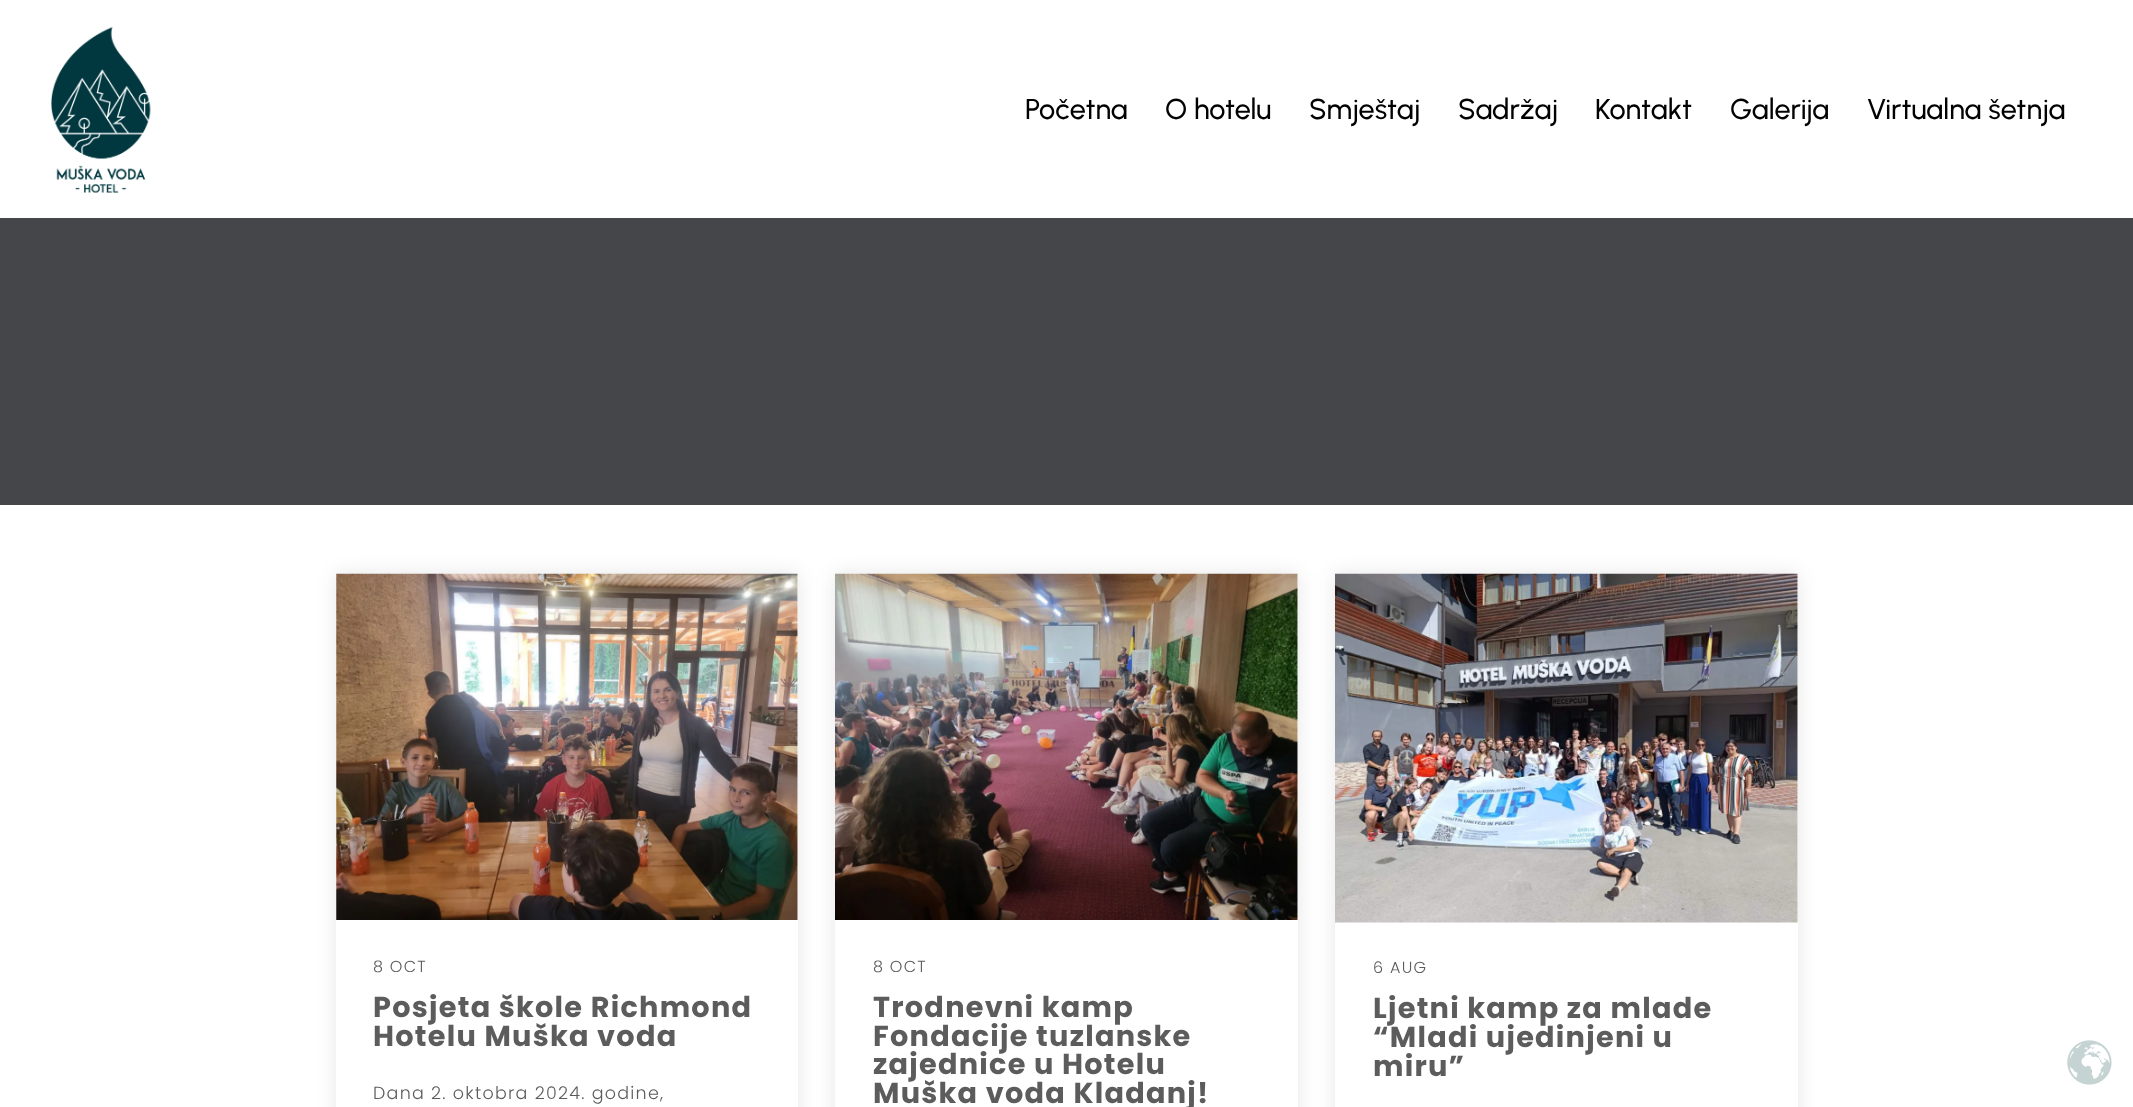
async function draw(canvas) {
  canvas.width = 2133;
  canvas.height = 1107;
  const ctx = canvas.getContext('2d');
  ctx.miterLimit = 4;
  ctx.fontKerning = 'normal';
  function label(s, x, y, font, color) {
    ctx.font = font;
    ctx.fillStyle = color;
    ctx.fillText(s, x, y);
  }
  function rect(x, y, w, h, color) {
    ctx.fillStyle = color;
    ctx.fillRect(x, y, w, h);
  }
  async function image(src, x, y, w, h) {
    const img = new Image();
    img.src = src;
    await img.decode();
    ctx.drawImage(img, x, y, w, h);
  }

  rect(0, 0, 2133, 1107, '#fff');
  await image('assets/img1.png', 51, 26, 100, 167);
  label('Početna', 1025, 119, '500 28.75px Urbanist', '#000');
  label('O hotelu', 1165, 119, '500 28.75px Urbanist', '#000');
  label('Smještaj', 1309, 119, '500 28.75px Urbanist', '#000');
  label('Sadržaj', 1458, 119, '500 28.75px Urbanist', '#000');
  label('Kontakt', 1595, 119, '500 28.75px Urbanist', '#000');
  label('Galerija', 1730, 119, '500 28.75px Urbanist', '#000');
  label('Virtualna šetnja', 1867, 119, '500 28.75px Urbanist', '#000');
  rect(0, 218, 2133, 287, '#444649');
  ctx.fillStyle = '#0000001a';
  ctx.filter = 'blur(9.5px)';
  ctx.beginPath();
  ctx.rect(336, 574, 462, 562);
  ctx.fill();
  ctx.filter = 'none';
  rect(336, 574, 462, 533, '#fff');
  await image('assets/img2.png', 336, 573, 462, 347);
  ctx.letterSpacing = '1.25px';
  label('8 OCT', 373, 972, '300 16px Poppins', '#5c5c5c');
  label('Posjeta škole Richmond', 373, 1017, 'bold 28.75px Poppins', '#5c5c5c');
  label('Hotelu Muška voda', 373, 1046, 'bold 28.75px Poppins', '#5c5c5c');
  label('Dana 2. oktobra 2024. godine,', 373, 1099, '300 17.5px Poppins', '#5c5c5c');
  ctx.fillStyle = '#0000001a';
  ctx.filter = 'blur(9.5px)';
  ctx.beginPath();
  ctx.rect(835, 574, 463, 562);
  ctx.fill();
  ctx.filter = 'none';
  rect(835, 574, 463, 533, '#fff');
  await image('assets/img3.png', 835, 573, 463, 347);
  label('8 OCT', 873, 972, '300 16px Poppins', '#5c5c5c');
  label('Trodnevni kamp', 873, 1017, 'bold 28.75px Poppins', '#5c5c5c');
  label('Fondacije tuzlanske', 873, 1046, 'bold 28.75px Poppins', '#5c5c5c');
  label('zajednice u Hotelu', 873, 1074, 'bold 28.75px Poppins', '#5c5c5c');
  label('Muška voda Kladanj!', 873, 1103, 'bold 28.75px Poppins', '#5c5c5c');
  ctx.fillStyle = '#0000001a';
  ctx.filter = 'blur(9.5px)';
  ctx.beginPath();
  ctx.rect(1335, 574, 463, 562);
  ctx.fill();
  ctx.filter = 'none';
  rect(1335, 574, 463, 533, '#fff');
  await image('assets/img4.png', 1335, 573, 463, 350);
  label('6 AUG', 1373, 973, '300 16px Poppins', '#5c5c5c');
  label('Ljetni kamp za mlade', 1373, 1018, 'bold 28.75px Poppins', '#5c5c5c');
  label('“Mladi ujedinjeni u', 1373, 1047, 'bold 28.75px Poppins', '#5c5c5c');
  label('miru”', 1373, 1076, 'bold 28.75px Poppins', '#5c5c5c');
  await image('assets/img5.png', 2067, 1040, 45, 45);
}

draw(document.querySelector('canvas'));
